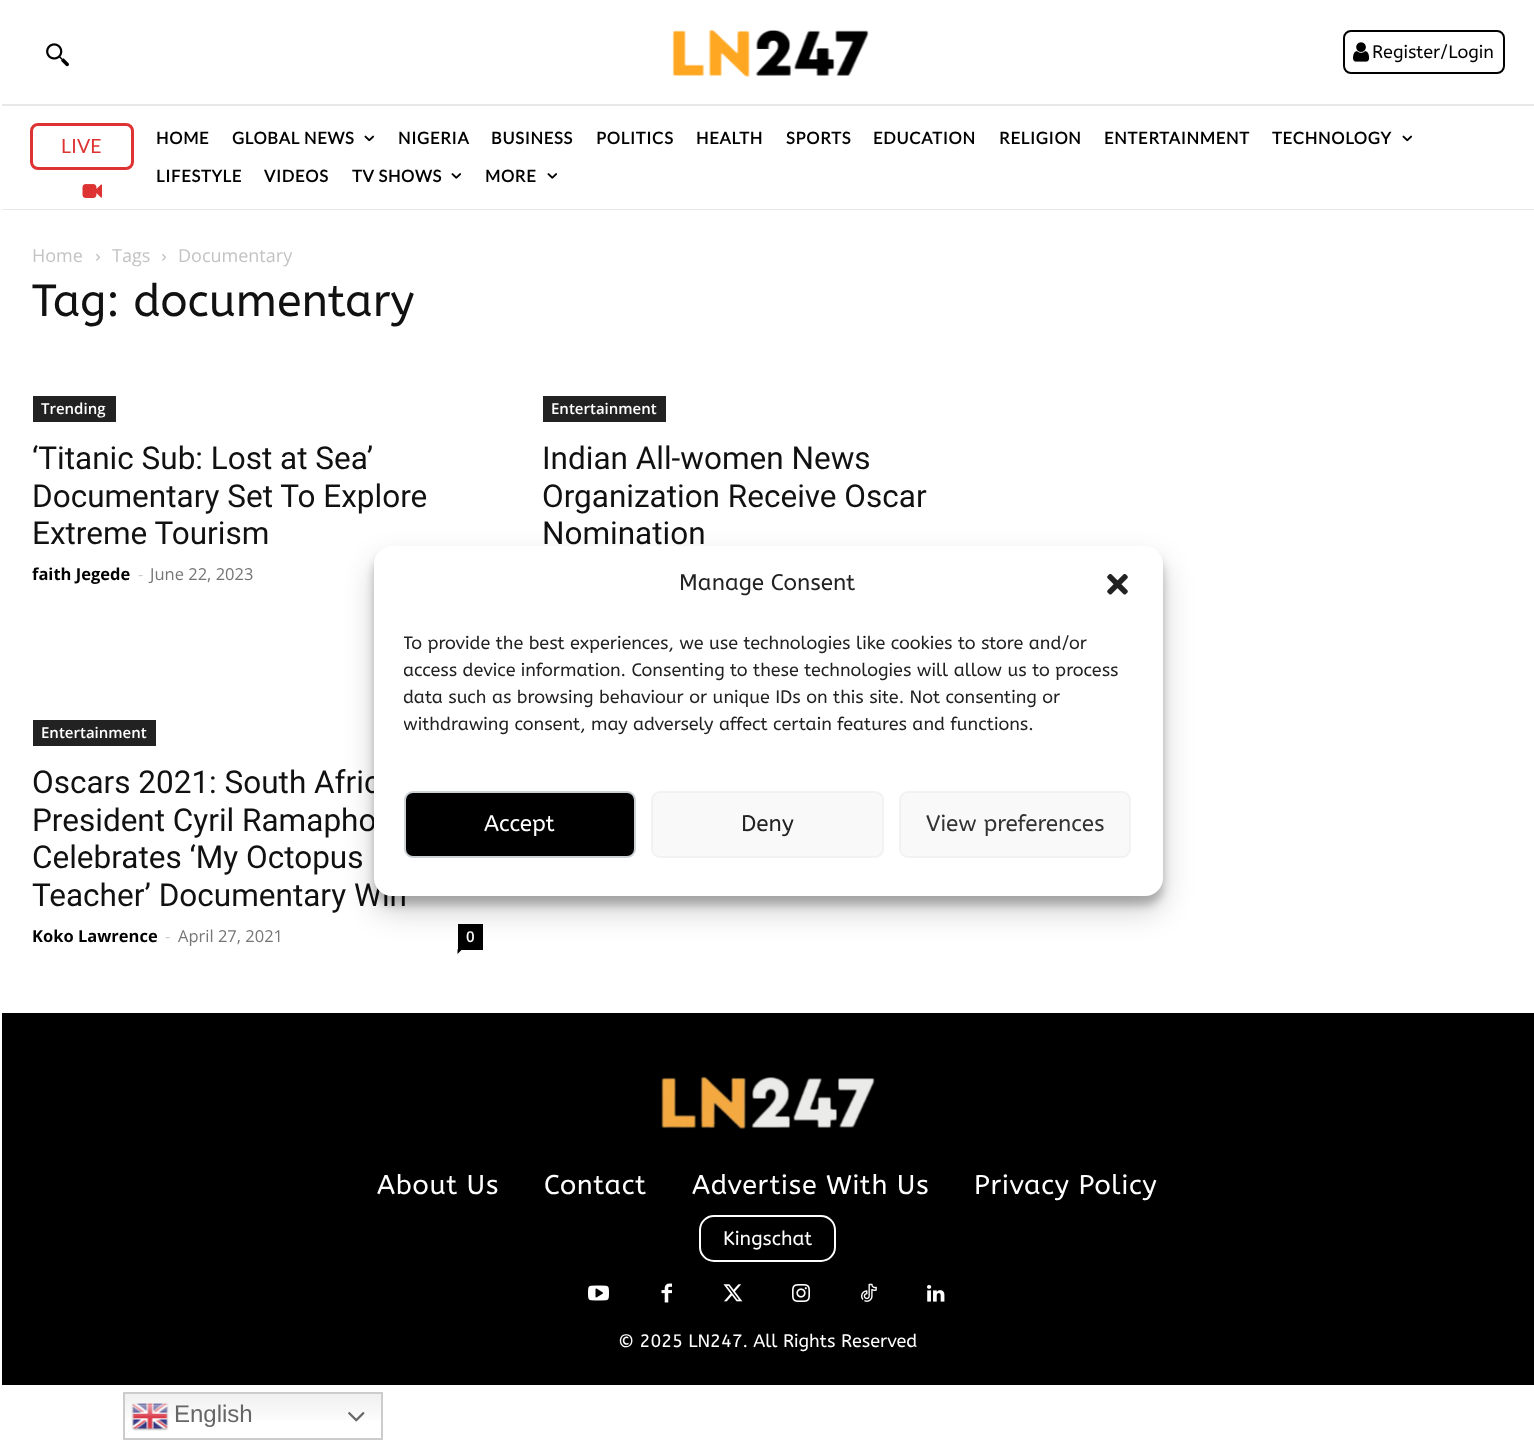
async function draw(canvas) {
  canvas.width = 1534;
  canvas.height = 1440;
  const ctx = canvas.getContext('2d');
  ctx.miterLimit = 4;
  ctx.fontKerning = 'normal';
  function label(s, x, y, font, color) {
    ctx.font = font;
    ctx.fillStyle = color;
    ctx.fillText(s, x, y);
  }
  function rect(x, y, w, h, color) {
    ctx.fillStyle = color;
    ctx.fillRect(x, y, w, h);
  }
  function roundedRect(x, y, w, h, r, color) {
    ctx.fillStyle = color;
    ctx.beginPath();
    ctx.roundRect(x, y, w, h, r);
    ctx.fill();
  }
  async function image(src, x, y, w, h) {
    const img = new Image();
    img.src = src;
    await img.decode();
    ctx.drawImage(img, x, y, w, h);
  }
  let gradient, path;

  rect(0, 0, 1534, 1440, '#fff');
  await image('assets/img1.png', 46, 43, 23, 24);
  await image('assets/img2.png', 672, 29, 197, 48);
  ctx.beginPath();
  ctx.roundRect(1344, 31, 160, 42, 7);
  ctx.strokeStyle = '#000';
  ctx.lineWidth = 2;
  ctx.stroke();
  await image('assets/img3.png', 1353, 42, 17, 20);
  label('Register/Login', 1372, 58, '18px ABeeZee', '#000');
  rect(2, 104, 1532, 2, '#e8e8e8');
  rect(2, 209, 1532, 1, '#e8e8e8');
  ctx.beginPath();
  ctx.roundRect(31.5, 124.5, 101, 44, 6.5);
  ctx.strokeStyle = '#d33';
  ctx.lineWidth = 3;
  ctx.stroke();
  label('LIVE', 61, 153, '19.5px Lato', '#d33');
  await image('assets/img4.png', 82, 184, 20, 14);
  ctx.letterSpacing = '0.75px';
  label('HOME', 156, 144, 'bold 16.5px Lato', '#000');
  label('GLOBAL NEWS', 232, 144, 'bold 16.5px Lato', '#000');
  await image('assets/img5.png', 364, 135, 10, 7);
  label('NIGERIA', 398, 144, 'bold 16.5px Lato', '#000');
  label('BUSINESS', 491, 144, 'bold 16.5px Lato', '#000');
  label('POLITICS', 596, 144, 'bold 16.5px Lato', '#000');
  label('HEALTH', 696, 144, 'bold 16.5px Lato', '#000');
  label('SPORTS', 786, 144, 'bold 16.5px Lato', '#000');
  label('EDUCATION', 873, 144, 'bold 16.5px Lato', '#000');
  label('RELIGION', 999, 144, 'bold 16.5px Lato', '#000');
  label('ENTERTAINMENT', 1104, 144, 'bold 16.5px Lato', '#000');
  label('TECHNOLOGY', 1272, 144, 'bold 16.5px Lato', '#000');
  await image('assets/img5.png', 1402, 135, 10, 7);
  label('LIFESTYLE', 156, 182, 'bold 16.5px Lato', '#000');
  label('VIDEOS', 264, 182, 'bold 16.5px Lato', '#000');
  label('TV SHOWS', 352, 182, 'bold 16.5px Lato', '#000');
  await image('assets/img6.png', 451, 173, 10, 6);
  label('MORE', 485, 182, 'bold 16.5px Lato', '#000');
  await image('assets/img6.png', 547, 173, 10, 6);
  ctx.letterSpacing = '0px';
  label('Home', 32, 262, '18px Open Sans', '#c3c3c3');
  await image('assets/img7.png', 96, 254, 4, 7);
  label('Tags', 112, 262, '18px Open Sans', '#c3c3c3');
  await image('assets/img7.png', 162, 254, 4, 7);
  label('Documentary', 178, 262, '18px Open Sans', '#c3c3c3');
  label('Tag: documentary', 32, 316, '45px ABeeZee', '#111');
  rect(33, 396, 83, 26, '#222');
  label('Trending', 41, 414, '600 15px Open Sans', '#fff');
  label('‘Titanic Sub: Lost at Sea’', 32, 469, '31.5px Roboto', '#111');
  label('Documentary Set To Explore', 32, 507, '31.5px Roboto', '#111');
  label('Extreme Tourism', 32, 544, '31.5px Roboto', '#111');
  label('faith Jegede', 32, 580, 'bold 16.5px Open Sans', '#000');
  label('-', 138, 580, '16.5px Open Sans', '#ccc');
  label('June 22, 2023', 150, 580, '16.5px Open Sans', '#767676');
  rect(543, 396, 123, 26, '#222');
  label('Entertainment', 551, 414, '600 15px Open Sans', '#fff');
  label('Indian All-women News', 542, 469, '31.5px Roboto', '#111');
  label('Organization Receive Oscar', 542, 507, '31.5px Roboto', '#111');
  label('Nomination', 542, 544, '31.5px Roboto', '#111');
  rect(33, 720, 123, 26, '#222');
  label('Entertainment', 41, 738, '600 15px Open Sans', '#fff');
  label('Oscars 2021: South Afric', 32, 793, '31.5px Roboto', '#111');
  label('President Cyril Ramapho', 32, 831, '31.5px Roboto', '#111');
  label('Celebrates ‘My Octopus', 32, 868, '31.5px Roboto', '#111');
  label('Teacher’ Documentary Win', 32, 906, '31.5px Roboto', '#111');
  label('Koko Lawrence', 32, 942, 'bold 16.5px Open Sans', '#000');
  label('-', 165, 942, '16.5px Open Sans', '#ccc');
  label('April 27, 2021', 178, 942, '16.5px Open Sans', '#767676');
  rect(458, 924, 25, 26, '#000');
  label('0', 466, 942, '600 15px Open Sans', '#fff');
  ctx.fillStyle = '#000';
  path = new Path2D('M457.5 949.5H462L457.5 954Z');
  ctx.fill(path);
  rect(2, 1013, 1532, 372, '#000');
  await image('assets/img8.png', 661, 1076, 214, 53);
  ctx.letterSpacing = '0.75px';
  label('About Us', 377, 1194, '27px ABeeZee', '#fff');
  label('Contact', 544, 1194, '27px ABeeZee', '#fff');
  label('Advertise With Us', 692, 1194, '27px ABeeZee', '#fff');
  label('Privacy Policy', 974, 1194, '27px ABeeZee', '#fff');
  ctx.beginPath();
  ctx.roundRect(700, 1216, 135, 45, 14);
  ctx.strokeStyle = '#fff';
  ctx.lineWidth = 2;
  ctx.stroke();
  ctx.letterSpacing = '0px';
  label('Kingschat', 723, 1245, '19.5px ABeeZee', '#fff');
  await image('assets/img9.png', 588, 1285, 21, 16);
  await image('assets/img10.png', 661, 1283, 11, 20);
  await image('assets/img11.png', 723, 1284, 20, 18);
  await image('assets/img12.png', 792, 1284, 18, 18);
  await image('assets/img13.png', 861, 1283, 16, 19);
  await image('assets/img14.png', 927, 1285, 18, 17);
  label('© 2025 LN247. All Rights Reserved', 618, 1347, '18px ABeeZee', '#fff');
  ctx.fillStyle = '#0000003b';
  ctx.filter = 'blur(4.5px)';
  ctx.beginPath();
  ctx.roundRect(374, 555, 789, 350, 18);
  ctx.fill();
  ctx.filter = 'none';
  ctx.fillStyle = '#00000030';
  ctx.filter = 'blur(15px)';
  ctx.beginPath();
  ctx.roundRect(374, 561, 789, 350, 18);
  ctx.fill();
  ctx.filter = 'none';
  roundedRect(374, 546, 789, 350, 18, '#fff');
  label('Manage Consent', 679, 590, '22.5px ABeeZee', '#222');
  await image('assets/img15.png', 1107, 574, 21, 21);
  ctx.save();
  ctx.beginPath();
  ctx.rect(404, 630, 729, 116);
  ctx.clip();
  label('To provide the best experiences, we use technologies like cookies to store and/or', 403, 649, '18px ABeeZee', '#222');
  label('access device information. Consenting to these technologies will allow us to process', 403, 676, '18px ABeeZee', '#222');
  label('data such as browsing behaviour or unique IDs on this site. Not consenting or', 403, 703, '18px ABeeZee', '#222');
  label('withdrawing consent, may adversely affect certain features and functions.', 403, 730, '18px ABeeZee', '#222');
  ctx.restore();
  ctx.fillStyle = '#000';
  ctx.beginPath();
  ctx.roundRect(405, 792, 230, 65, 8);
  ctx.fill();
  ctx.strokeStyle = '#ccd1d4';
  ctx.stroke();
  label('Accept', 484, 831, '22.5px ABeeZee', '#fff');
  ctx.fillStyle = '#f9f9f9';
  ctx.beginPath();
  ctx.roundRect(652, 792, 231, 65, 8);
  ctx.fill();
  ctx.strokeStyle = '#f2f2f2';
  ctx.stroke();
  label('Deny', 741, 831, '22.5px ABeeZee', '#222');
  ctx.fillStyle = '#f9f9f9';
  ctx.beginPath();
  ctx.roundRect(900, 792, 230, 65, 8);
  ctx.fill();
  ctx.stroke();
  label('View preferences', 926, 831, '22.5px ABeeZee', '#333');
  gradient = ctx.createLinearGradient(253, 1392, 253, 1440);
  gradient.addColorStop(0, '#efefef');
  gradient.addColorStop(0.7, '#fff');
  ctx.fillStyle = gradient;
  ctx.fillRect(125, 1394, 256, 26);
  ctx.strokeStyle = '#ccc';
  ctx.strokeRect(124, 1393, 258, 46);
  await image('assets/img16.png', 131, 1403, 38, 28);
  label('English', 174, 1422, '24px Liberation Sans', '#666');
  await image('assets/img17.png', 348, 1412, 17, 10);
}

draw(document.querySelector('canvas'));
